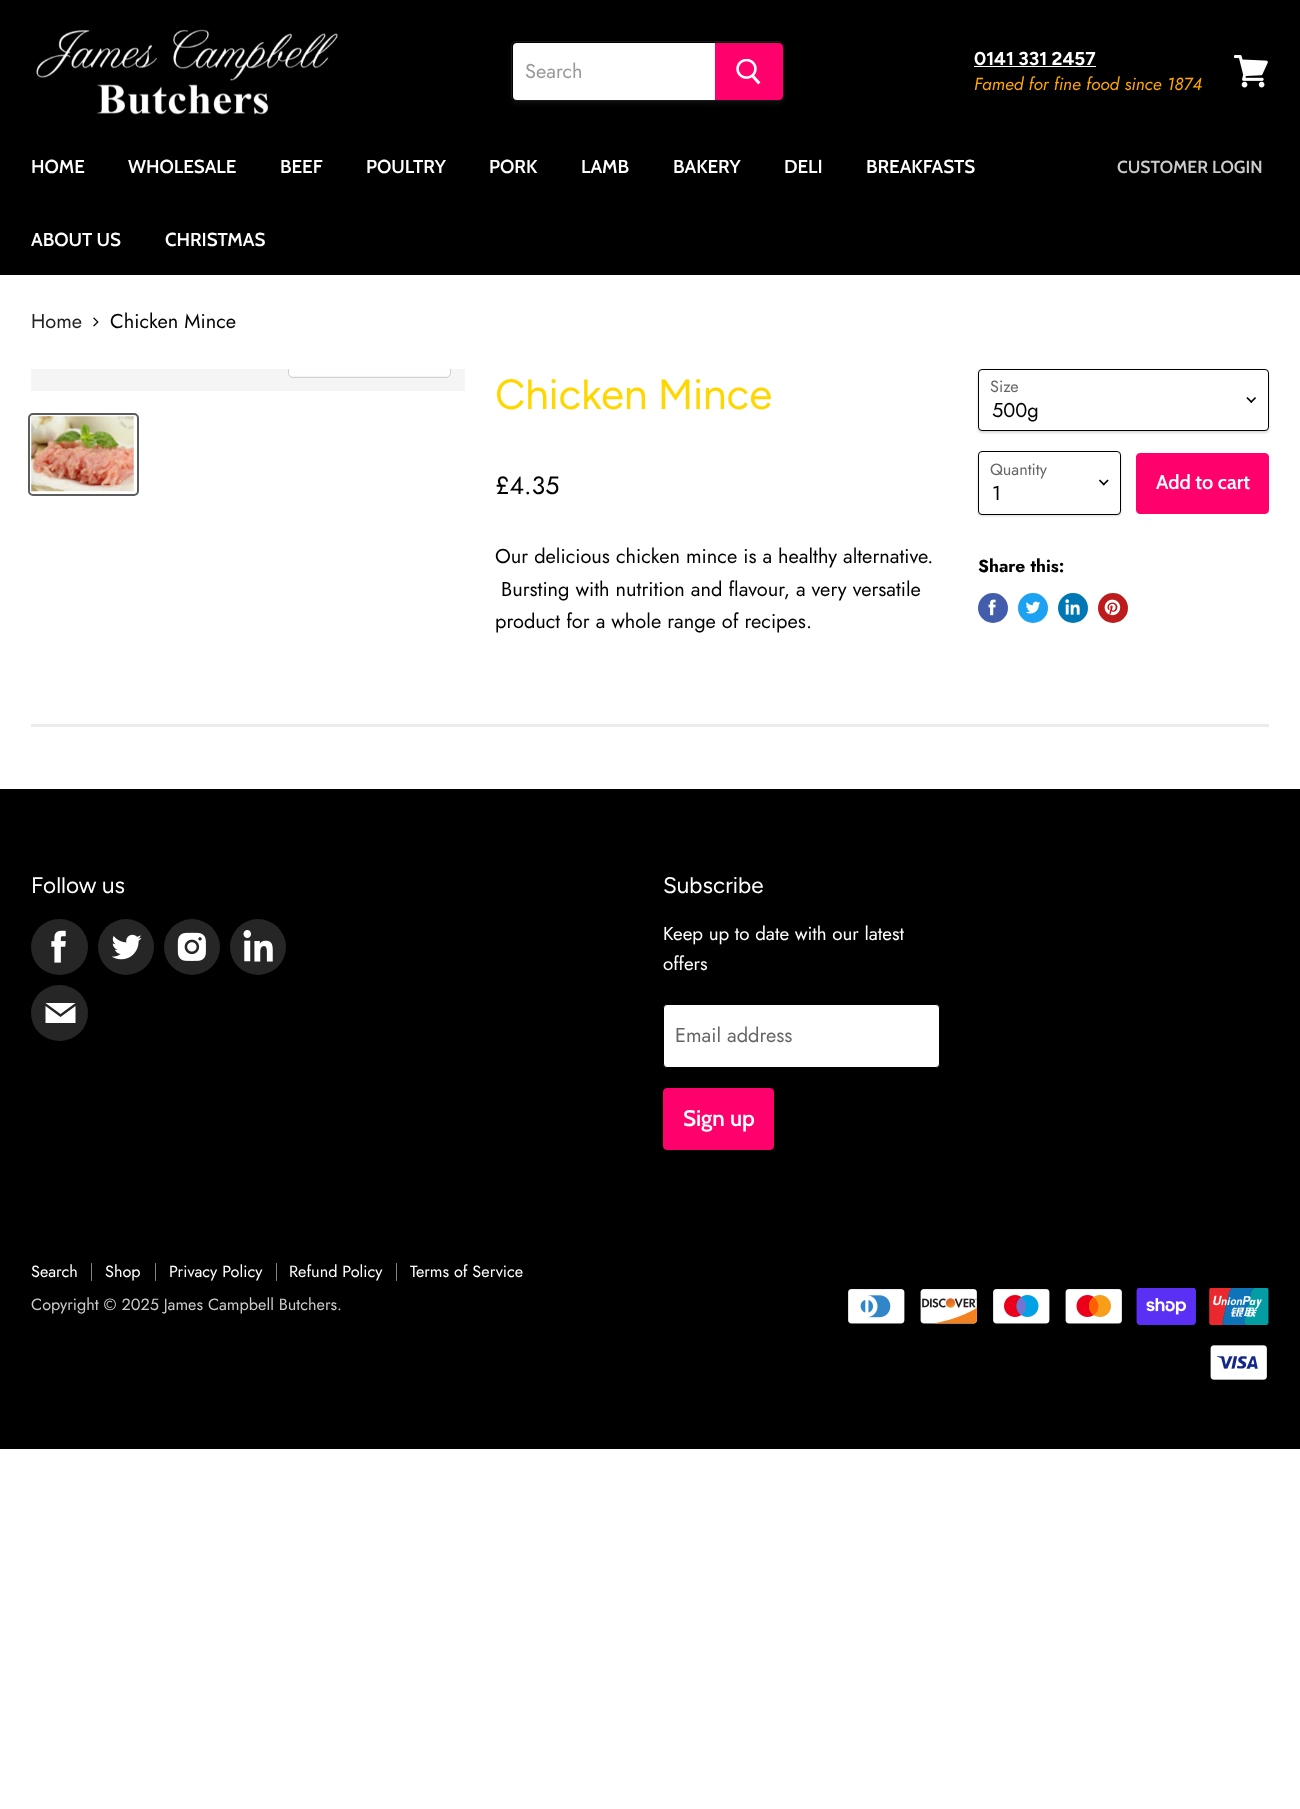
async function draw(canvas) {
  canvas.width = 1300;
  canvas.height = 1809;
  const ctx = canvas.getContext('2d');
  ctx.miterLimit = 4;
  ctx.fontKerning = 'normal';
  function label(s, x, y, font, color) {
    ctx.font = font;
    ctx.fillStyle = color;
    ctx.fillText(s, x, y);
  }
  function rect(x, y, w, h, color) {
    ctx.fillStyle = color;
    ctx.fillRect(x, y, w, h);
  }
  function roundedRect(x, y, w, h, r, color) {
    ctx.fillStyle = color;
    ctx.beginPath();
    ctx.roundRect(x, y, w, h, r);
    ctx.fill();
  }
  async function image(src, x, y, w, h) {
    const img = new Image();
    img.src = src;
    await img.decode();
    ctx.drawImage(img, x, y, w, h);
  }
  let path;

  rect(0, 0, 1300, 1809, '#fff');
  rect(0, 0, 1300, 275, '#000');
  await image('assets/img1.png', 36, 29, 302, 86);
  ctx.save();
  path = new Path2D('M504 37H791V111H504ZM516 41H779C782 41 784 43 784 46V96C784 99 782 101 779 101H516C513 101 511 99 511 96V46C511 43 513 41 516 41Z');
  ctx.clip(path, 'evenodd');
  ctx.fillStyle = '#8080801c';
  ctx.filter = 'blur(2px)';
  ctx.beginPath();
  ctx.roundRect(511, 44, 273, 60, 5);
  ctx.fill();
  ctx.filter = 'none';
  ctx.restore();
  ctx.beginPath();
  ctx.roundRect(511.5, 41.5, 272, 59, 4.5);
  ctx.strokeStyle = '#80808033';
  ctx.stroke();
  ctx.fillStyle = '#fff';
  ctx.beginPath();
  ctx.roundRect(513, 43, 202, 57, [4, 0, 0, 4]);
  ctx.fill();
  label('Search', 525, 78, '20px Jost', '#999');
  ctx.fillStyle = '#ff006d';
  ctx.beginPath();
  ctx.roundRect(715.5, 43.5, 67, 56, [0, 3.5, 3.5, 0]);
  ctx.fill();
  ctx.strokeStyle = '#ff006d';
  ctx.stroke();
  await image('assets/img2.png', 736, 59, 25, 26);
  label('0141 331 2457', 974, 65, 'bold 18.75px Figtree', '#fff');
  rect(974, 66, 122, 1, '#fff');
  label('Famed for fine food since 1874', 974, 90, 'italic 17.5px Jost', '#ffa800');
  await image('assets/img3.png', 1234, 55, 34, 33);
  label('HOME', 31, 173, '600 18.75px Cabin', '#fff');
  label('WHOLESALE', 128, 173, '600 18.75px Cabin', '#fff');
  label('BEEF', 280, 173, '600 18.75px Cabin', '#fff');
  label('POULTRY', 366, 173, '600 18.75px Cabin', '#fff');
  label('PORK', 489, 173, '600 18.75px Cabin', '#fff');
  label('LAMB', 581, 173, '600 18.75px Cabin', '#fff');
  label('BAKERY', 673, 173, '600 18.75px Cabin', '#fff');
  label('DELI', 784, 173, '600 18.75px Cabin', '#fff');
  label('BREAKFASTS', 866, 173, '600 18.75px Cabin', '#fff');
  label('ABOUT US', 31, 246, '600 18.75px Cabin', '#fff');
  label('CHRISTMAS', 165, 246, '600 18.75px Cabin', '#fff');
  label('CUSTOMER LOGIN', 1117, 173, '600 17.5px Cabin', '#ccc');
  label('Home', 31, 328, '20px Jost', '#222');
  await image('assets/img4.png', 93, 317, 6, 10);
  label('Chicken Mince', 110, 328, '20px Jost', '#000');
  rect(31, 369, 434, 22, '#f5f5f5');
  ctx.save();
  ctx.beginPath();
  ctx.rect(31, 369, 434, 22);
  ctx.clip();
  ctx.beginPath();
  ctx.roundRect(288.5, 340.5, 162, 37, 4.5);
  ctx.strokeStyle = '#d0d0d0';
  ctx.stroke();
  ctx.restore();
  ctx.fillStyle = '#fefefe';
  ctx.beginPath();
  ctx.roundRect(289, 369, 161, 7, [0, 0, 4, 4]);
  ctx.fill();
  ctx.beginPath();
  ctx.roundRect(29, 414, 109, 81, 4);
  ctx.strokeStyle = '#5c5c5c';
  ctx.lineWidth = 2;
  ctx.stroke();
  await image('assets/img5.png', 31, 416, 103, 76);
  label('Chicken Mince', 495, 409, '42px Figtree', '#ffd700');
  label('£4.35', 495, 494, '25px Jost', '#000');
  label('Our delicious chicken mince is a healthy alternative.', 495, 563, '20px Jost', '#000');
  label('Bursting with nutrition and flavour, a very versatile', 501, 596, '20px Jost', '#000');
  label('product for a whole range of recipes.', 495, 628, '20px Jost', '#000');
  ctx.fillStyle = '#00000026';
  ctx.filter = 'blur(1px)';
  ctx.beginPath();
  ctx.roundRect(978, 370, 291, 63, 4);
  ctx.fill();
  ctx.filter = 'none';
  ctx.fillStyle = '#fff';
  ctx.beginPath();
  ctx.roundRect(978.5, 369.5, 290, 61, 3.5);
  ctx.fill();
  ctx.strokeStyle = '#000';
  ctx.lineWidth = 1;
  ctx.stroke();
  label('Size', 990, 392, '16.25px Jost', '#666');
  await image('assets/img6.png', 1246, 397, 10, 6);
  label('500g', 992, 417, '20px Jost', '#000');
  ctx.fillStyle = '#00000026';
  ctx.filter = 'blur(1px)';
  ctx.beginPath();
  ctx.roundRect(978, 453, 143, 63, 4);
  ctx.fill();
  ctx.filter = 'none';
  ctx.fillStyle = '#fff';
  ctx.beginPath();
  ctx.roundRect(978.5, 451.5, 142, 63, 3.5);
  ctx.fill();
  ctx.stroke();
  label('Quantity', 990, 475, '16.25px Jost', '#666');
  await image('assets/img7.png', 1099, 479, 10, 7);
  label('1', 992, 500, '20px Jost', '#000');
  ctx.fillStyle = '#ff006d';
  ctx.beginPath();
  ctx.roundRect(1136.5, 453.5, 132, 60, 3.5);
  ctx.fill();
  ctx.strokeStyle = '#ff006d';
  ctx.stroke();
  label('Add to cart', 1156, 489, '600 20px Cabin', '#fff');
  label('Share this:', 978, 572, 'bold 17.5px Jost', '#000');
  ctx.fillStyle = '#425dab';
  ctx.beginPath();
  ctx.arc(993, 608, 15, 0, 2 * Math.PI);
  ctx.fill();
  await image('assets/img8.png', 988, 599, 8, 17);
  ctx.fillStyle = '#1da1f2';
  ctx.beginPath();
  ctx.arc(1033, 608, 15, 0, 2 * Math.PI);
  ctx.fill();
  await image('assets/img9.png', 1025, 601, 16, 13);
  ctx.fillStyle = '#0077b5';
  ctx.beginPath();
  ctx.arc(1073, 608, 15, 0, 2 * Math.PI);
  ctx.fill();
  await image('assets/img10.png', 1065, 599, 15, 16);
  ctx.fillStyle = '#bd1c1c';
  ctx.beginPath();
  ctx.arc(1113, 608, 15, 0, 2 * Math.PI);
  ctx.fill();
  await image('assets/img11.png', 1104, 599, 17, 17);
  rect(31, 724, 1238, 3, '#80808029');
  rect(0, 789, 1300, 660, '#000');
  label('Follow us', 31, 893, '22.5px Figtree', '#fff');
  roundedRect(31, 919, 57, 56, 28, '#262626');
  await image('assets/img12.png', 51, 930, 15, 33);
  ctx.beginPath();
  ctx.arc(126, 947, 28, 0, 2 * Math.PI);
  ctx.fill();
  await image('assets/img13.png', 111, 934, 31, 26);
  ctx.beginPath();
  ctx.arc(192, 947, 28, 0, 2 * Math.PI);
  ctx.fill();
  await image('assets/img14.png', 177, 932, 29, 29);
  ctx.beginPath();
  ctx.arc(258, 947, 28, 0, 2 * Math.PI);
  ctx.fill();
  await image('assets/img15.png', 243, 930, 30, 32);
  roundedRect(31, 985, 57, 56, 28, '#262626');
  ctx.fillStyle = '#fff';
  path = new Path2D('M75.5 1003H45.5L60.5 1014ZM60.5 1017L45.5 1006V1023H75.5V1006Z');
  ctx.fill(path, 'evenodd');
  label('Subscribe', 663, 893, '22.5px Figtree', '#fff');
  label('Keep up to date with our latest', 663, 940, '18.75px Jost', '#fff');
  label('offers', 663, 970, '18.75px Jost', '#fff');
  ctx.beginPath();
  ctx.roundRect(663.5, 1004.5, 276, 63, 3.5);
  ctx.fill();
  ctx.strokeStyle = '#000';
  ctx.stroke();
  label('Email address', 675, 1042, '20px Jost', '#666');
  ctx.fillStyle = '#ff006d';
  ctx.beginPath();
  ctx.roundRect(663.5, 1088.5, 110, 61, 3.5);
  ctx.fill();
  ctx.strokeStyle = '#ff006d';
  ctx.stroke();
  label('Sign up', 683, 1126, '600 22.5px Cabin', '#fff');
  rect(91, 1263, 1, 18, '#808080');
  label('Search', 31, 1277, '16.25px Jost', '#fff');
  rect(155, 1263, 1, 18, '#808080');
  label('Shop', 105, 1277, '16.25px Jost', '#fff');
  rect(276, 1263, 1, 18, '#808080');
  label('Privacy Policy', 169, 1277, '16.25px Jost', '#fff');
  rect(396, 1263, 1, 18, '#808080');
  label('Refund Policy', 289, 1277, '16.25px Jost', '#fff');
  label('Terms of Service', 410, 1277, '16.25px Jost', '#fff');
  label('Copyright © 2025 James Campbell Butchers.', 31, 1310, '16.25px Jost', '#ccc');
  await image('assets/img16.png', 848, 1289, 57, 35);
  await image('assets/img17.png', 920, 1289, 57, 35);
  await image('assets/img18.png', 993, 1289, 57, 35);
  await image('assets/img19.png', 1065, 1289, 57, 35);
  await image('assets/img20.png', 1136, 1288, 60, 37);
  await image('assets/img21.png', 1209, 1288, 60, 37);
  await image('assets/img22.png', 1210, 1345, 57, 35);
}

draw(document.querySelector('canvas'));
